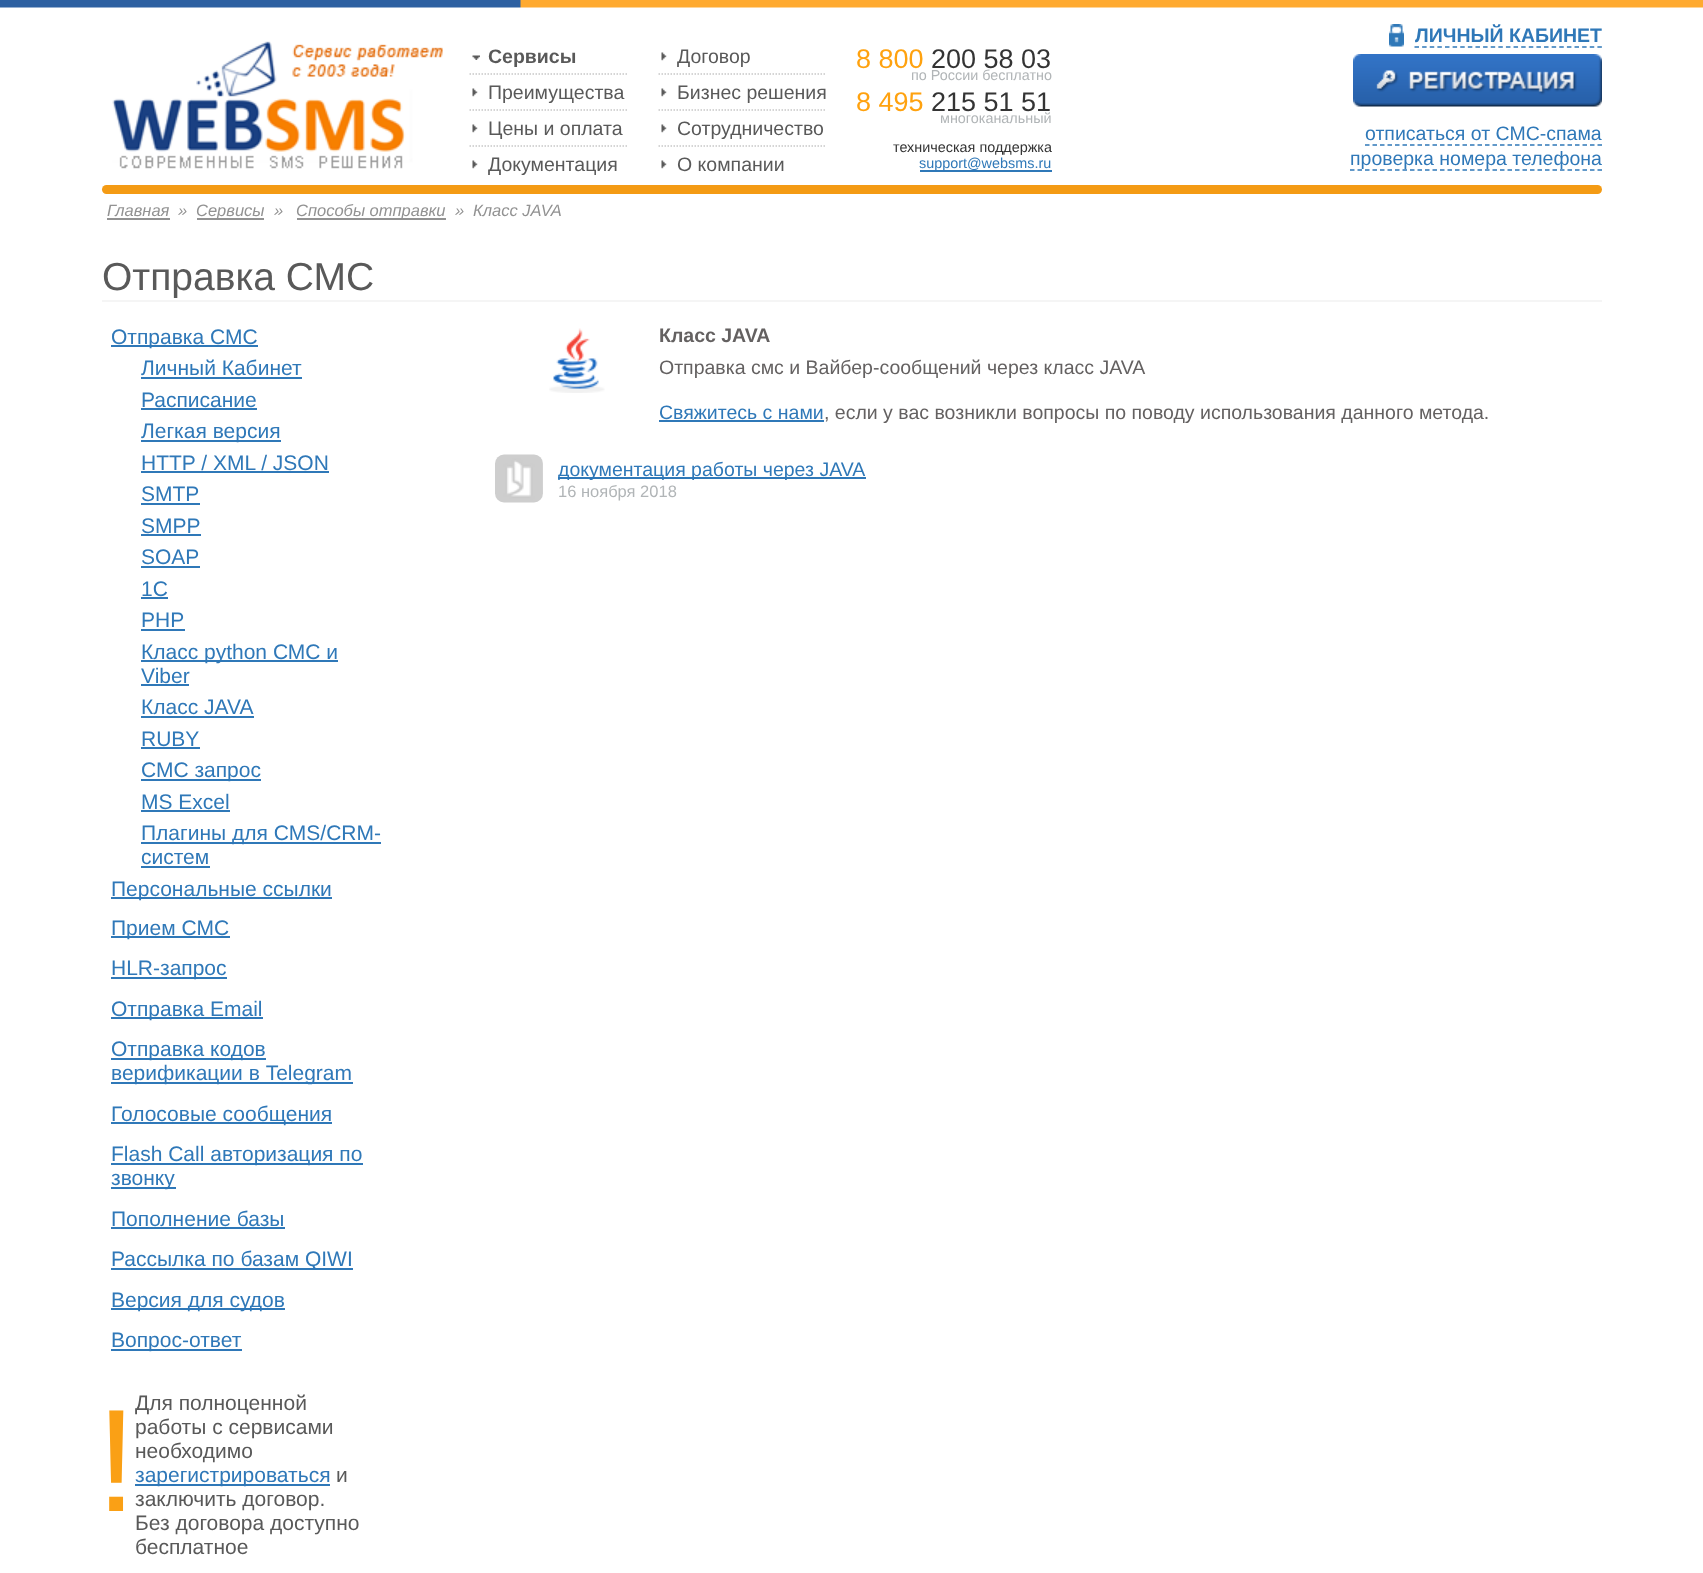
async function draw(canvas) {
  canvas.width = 1703;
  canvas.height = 1573;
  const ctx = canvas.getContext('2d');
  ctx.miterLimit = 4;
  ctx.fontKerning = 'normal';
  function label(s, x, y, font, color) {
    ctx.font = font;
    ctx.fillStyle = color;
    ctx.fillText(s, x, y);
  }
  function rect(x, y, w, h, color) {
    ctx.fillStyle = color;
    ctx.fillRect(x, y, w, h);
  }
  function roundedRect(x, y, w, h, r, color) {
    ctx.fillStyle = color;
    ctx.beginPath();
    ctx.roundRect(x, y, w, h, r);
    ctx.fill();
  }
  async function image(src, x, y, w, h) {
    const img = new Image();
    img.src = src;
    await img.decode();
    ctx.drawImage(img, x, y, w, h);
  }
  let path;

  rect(0, 0, 1703, 1573, '#fff');
  await image('assets/img1.png', 0, 0, 1703, 8);
  await image('assets/img2.png', 112, 41, 331, 128);
  await image('assets/img3.png', 472, 55, 8, 5);
  label('Сервисы', 488, 63, 'bold 19.5px Liberation Sans', '#595959');
  path = new Path2D('M469.5 74H628.5');
  ctx.strokeStyle = '#c8c8c8';
  ctx.lineWidth = 1.5;
  ctx.setLineDash([1.5, 1.5]);
  ctx.stroke(path);
  await image('assets/img4.png', 472, 88, 6, 9);
  label('Преимущества', 488, 99, '19.5px Liberation Sans', '#595959');
  path = new Path2D('M469.5 110H628.5');
  ctx.stroke(path);
  await image('assets/img4.png', 472, 124, 6, 9);
  label('Цены и оплата', 488, 135, '19.5px Liberation Sans', '#595959');
  path = new Path2D('M469.5 146H628.5');
  ctx.stroke(path);
  await image('assets/img4.png', 472, 160, 6, 9);
  label('Документация', 488, 171, '19.5px Liberation Sans', '#595959');
  await image('assets/img5.png', 661, 52, 6, 9);
  label('Договор', 677, 63, '19.5px Liberation Sans', '#595959');
  path = new Path2D('M658.5 74H826.5');
  ctx.stroke(path);
  await image('assets/img5.png', 661, 88, 6, 9);
  label('Бизнес решения', 677, 99, '19.5px Liberation Sans', '#595959');
  path = new Path2D('M658.5 110H826.5');
  ctx.stroke(path);
  await image('assets/img5.png', 661, 124, 6, 9);
  label('Сотрудничество', 677, 135, '19.5px Liberation Sans', '#595959');
  path = new Path2D('M658.5 146H826.5');
  ctx.stroke(path);
  await image('assets/img5.png', 661, 160, 6, 9);
  label('О компании', 677, 171, '19.5px Liberation Sans', '#595959');
  label('8 800', 856, 68, '27px Liberation Sans', '#ffa20f');
  label('200 58 03', 931, 68, '27px Liberation Sans', '#343434');
  label('по России бесплатно', 911, 80, '14.4px Liberation Sans', '#b1b5b7');
  label('8 495', 856, 111, '27px Liberation Sans', '#ffa20f');
  label('215 51 51', 931, 111, '27px Liberation Sans', '#343434');
  label('многоканальный', 940, 123, '14.4px Liberation Sans', '#b1b5b7');
  label('техническая поддержка', 893, 152, '14.4px Liberation Sans', '#343434');
  rect(920, 170, 132, 2, '#2f78b8');
  label('support@websms.ru', 919, 168, '14.4px Liberation Sans', '#2f78b8');
  await image('assets/img6.png', 1389, 24, 15, 23);
  label('ЛИЧНЫЙ КАБИНЕТ', 1415, 42, 'bold 19.5px Liberation Sans', '#2f78b8');
  path = new Path2D('M1414.5 47H1602');
  ctx.strokeStyle = '#2f78b8';
  ctx.setLineDash([4.5, 3.12]);
  ctx.stroke(path);
  await image('assets/img7.png', 1353, 54, 249, 53);
  label('отписаться от СМС-спама', 1365, 140, '19.5px Liberation Sans', '#2f78b8');
  path = new Path2D('M1365 145H1602');
  ctx.setLineDash([4.5, 3]);
  ctx.stroke(path);
  path = new Path2D('M1350 170H1602');
  ctx.stroke(path);
  label('проверка номера телефона', 1350, 165, '19.5px Liberation Sans', '#2f78b8');
  roundedRect(102, 185, 1500, 9, 4.5, '#f49b14');
  label('Главная', 107, 216, 'italic 16.5px Liberation Sans', '#929292');
  rect(107, 218, 63, 2, '#929292');
  label('»', 178, 216, 'italic 16.5px Liberation Sans', '#929292');
  rect(197, 218, 67, 2, '#929292');
  label('Сервисы', 196, 216, 'italic 16.5px Liberation Sans', '#929292');
  label('»', 274, 216, 'italic 16.5px Liberation Sans', '#929292');
  rect(297, 218, 149, 2, '#929292');
  label('Способы отправки', 296, 216, 'italic 16.5px Liberation Sans', '#929292');
  label('»', 455, 216, 'italic 16.5px Liberation Sans', '#929292');
  label('Класс JAVA', 473, 216, 'italic 16.5px Liberation Sans', '#929292');
  rect(102, 300, 1500, 2, '#f5f5f5');
  label('Отправка СМС', 102, 290, '39px Liberation Sans', '#595959');
  rect(111, 345, 147, 2, '#2f78b8');
  label('Отправка СМС', 111, 344, '21px Liberation Sans', '#2f78b8');
  label('Личный Кабинет', 141, 375, '21px Liberation Sans', '#2f78b8');
  rect(141, 377, 161, 2, '#2f78b8');
  label('Расписание', 141, 407, '21px Liberation Sans', '#2f78b8');
  rect(141, 408, 116, 2, '#2f78b8');
  rect(141, 440, 140, 2, '#2f78b8');
  label('Легкая версия', 141, 438, '21px Liberation Sans', '#2f78b8');
  label('HTTP / XML / JSON', 141, 470, '21px Liberation Sans', '#2f78b8');
  rect(141, 471, 188, 2, '#2f78b8');
  label('SMTP', 141, 501, '21px Liberation Sans', '#2f78b8');
  rect(141, 503, 59, 2, '#2f78b8');
  label('SMPP', 141, 533, '21px Liberation Sans', '#2f78b8');
  rect(141, 534, 60, 2, '#2f78b8');
  label('SOAP', 141, 564, '21px Liberation Sans', '#2f78b8');
  rect(141, 566, 59, 2, '#2f78b8');
  label('1С', 141, 596, '21px Liberation Sans', '#2f78b8');
  rect(141, 597, 27, 2, '#2f78b8');
  label('PHP', 141, 627, '21px Liberation Sans', '#2f78b8');
  rect(141, 629, 44, 2, '#2f78b8');
  rect(141, 660, 197, 2, '#2f78b8');
  label('Класс python СМС и', 141, 659, '21px Liberation Sans', '#2f78b8');
  label('Viber', 141, 683, '21px Liberation Sans', '#2f78b8');
  rect(141, 684, 48, 2, '#2f78b8');
  label('Класс JAVA', 141, 714, '21px Liberation Sans', '#2f78b8');
  rect(141, 716, 113, 2, '#2f78b8');
  label('RUBY', 141, 746, '21px Liberation Sans', '#2f78b8');
  rect(141, 747, 59, 2, '#2f78b8');
  rect(141, 779, 120, 2, '#2f78b8');
  label('СМС запрос', 141, 777, '21px Liberation Sans', '#2f78b8');
  label('MS Excel', 141, 809, '21px Liberation Sans', '#2f78b8');
  rect(141, 810, 89, 2, '#2f78b8');
  rect(141, 842, 240, 2, '#2f78b8');
  label('Плагины для CMS/CRM-', 141, 840, '21px Liberation Sans', '#2f78b8');
  label('систем', 141, 864, '21px Liberation Sans', '#2f78b8');
  rect(141, 866, 69, 2, '#2f78b8');
  rect(111, 897, 221, 2, '#2f78b8');
  label('Персональные ссылки', 111, 896, '21px Liberation Sans', '#2f78b8');
  rect(111, 936, 119, 2, '#2f78b8');
  label('Прием СМС', 111, 935, '21px Liberation Sans', '#2f78b8');
  rect(111, 977, 116, 2, '#2f78b8');
  label('HLR-запрос', 111, 975, '21px Liberation Sans', '#2f78b8');
  rect(111, 1017, 152, 2, '#2f78b8');
  label('Отправка Email', 111, 1016, '21px Liberation Sans', '#2f78b8');
  rect(111, 1058, 155, 2, '#2f78b8');
  label('Отправка кодов', 111, 1056, '21px Liberation Sans', '#2f78b8');
  rect(111, 1082, 242, 2, '#2f78b8');
  label('верификации в Telegram', 111, 1080, '21px Liberation Sans', '#2f78b8');
  rect(111, 1122, 221, 2, '#2f78b8');
  label('Голосовые сообщения', 111, 1121, '21px Liberation Sans', '#2f78b8');
  rect(111, 1163, 252, 2, '#2f78b8');
  label('Flash Call авторизация по', 111, 1161, '21px Liberation Sans', '#2f78b8');
  rect(111, 1187, 65, 2, '#2f78b8');
  label('звонку', 111, 1185, '21px Liberation Sans', '#2f78b8');
  label('Пополнение базы', 111, 1226, '21px Liberation Sans', '#2f78b8');
  rect(111, 1227, 174, 2, '#2f78b8');
  rect(111, 1268, 242, 2, '#2f78b8');
  label('Рассылка по базам QIWI', 111, 1266, '21px Liberation Sans', '#2f78b8');
  rect(111, 1308, 174, 2, '#2f78b8');
  label('Версия для судов', 111, 1307, '21px Liberation Sans', '#2f78b8');
  rect(111, 1349, 131, 2, '#2f78b8');
  label('Вопрос-ответ', 111, 1347, '21px Liberation Sans', '#2f78b8');
  label('!', 96, 1511, '146px Liberation Sans', '#faa015');
  label('Для полноценной', 135, 1410, '21px Liberation Sans', '#595959');
  label('работы с сервисами', 135, 1434, '21px Liberation Sans', '#595959');
  label('необходимо', 135, 1458, '21px Liberation Sans', '#595959');
  rect(135, 1484, 195, 2, '#2f78b8');
  label('зарегистрироваться', 135, 1482, '21px Liberation Sans', '#2f78b8');
  label('и', 336, 1482, '21px Liberation Sans', '#595959');
  label('заключить договор.', 135, 1506, '21px Liberation Sans', '#595959');
  label('Без договора доступно', 135, 1530, '21px Liberation Sans', '#595959');
  label('бесплатное', 135, 1554, '21px Liberation Sans', '#595959');
  await image('assets/img8.png', 549, 328, 56, 65);
  label('Класс JAVA', 659, 342, 'bold 19.5px Liberation Sans', '#646161');
  label('Отправка смс и Вайбер-сообщений через класс JAVA', 659, 374, '19.5px Liberation Sans', '#646161');
  label('Свяжитесь с нами', 659, 419, '19.5px Liberation Sans', '#2f78b8');
  label(', если у вас возникли вопросы по поводу использования данного метода.', 824, 419, '19.5px Liberation Sans', '#646161');
  rect(659, 420, 165, 2, '#2f78b8');
  await image('assets/img9.png', 495, 454, 48, 49);
  rect(558, 477, 308, 2, '#2f78b8');
  label('документация работы через JAVA', 558, 476, '19.5px Liberation Sans', '#2f78b8');
  label('16 ноября 2018', 558, 497, '16.5px Liberation Sans', '#b1b5b7');
}

draw(document.querySelector('canvas'));
